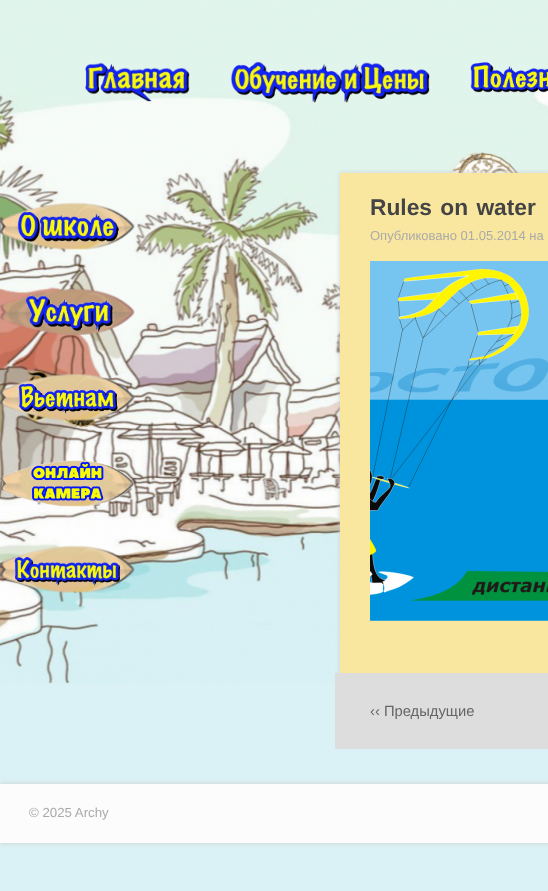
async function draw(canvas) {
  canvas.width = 548;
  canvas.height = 891;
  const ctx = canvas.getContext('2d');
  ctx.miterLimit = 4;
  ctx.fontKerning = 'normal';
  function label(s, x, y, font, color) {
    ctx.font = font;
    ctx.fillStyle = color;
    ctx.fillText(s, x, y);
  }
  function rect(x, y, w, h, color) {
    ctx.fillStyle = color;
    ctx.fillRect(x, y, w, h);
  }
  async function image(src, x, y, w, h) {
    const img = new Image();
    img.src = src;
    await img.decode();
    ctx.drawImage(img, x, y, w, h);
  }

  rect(0, 0, 548, 891, '#daf1f5');
  await image('assets/img1.png', 0, 0, 548, 684);
  await image('assets/img2.png', 85, 62, 105, 40);
  await image('assets/img3.png', 230, 61, 200, 42);
  await image('assets/img4.png', 470, 61, 78, 32);
  await image('assets/img5.png', 0, 202, 135, 48);
  await image('assets/img6.png', 0, 288, 135, 47);
  await image('assets/img7.png', 0, 373, 135, 48);
  await image('assets/img8.png', 0, 460, 134, 47);
  await image('assets/img9.png', 0, 545, 135, 48);
  ctx.fillStyle = '#d0d0d0';
  ctx.filter = 'blur(2.5px)';
  ctx.beginPath();
  ctx.rect(340, 173, 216, 571);
  ctx.fill();
  ctx.filter = 'none';
  rect(340, 173, 208, 500, '#f9e79f');
  ctx.wordSpacing = '2px';
  label('Rules on water', 370, 215, 'bold 22.75px Liberation Sans', '#444');
  ctx.wordSpacing = '0px';
  label('Опубликовано 01.05.2014 на', 370, 240, '13px Arimo', '#aaa');
  await image('assets/img10.png', 370, 261, 178, 360);
  rect(335, 673, 213, 76, '#ddd');
  label('‹‹ Предыдущие', 370, 716, '14.75px Arimo', '#666');
  ctx.fillStyle = '#d0d0d0';
  ctx.filter = 'blur(2.5px)';
  ctx.beginPath();
  ctx.rect(0, 784, 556, 59);
  ctx.fill();
  ctx.filter = 'none';
  rect(0, 784, 548, 59, '#fcfcfc');
  label('© 2025 Archy', 29, 817, '13.25px Arimo', '#aaa');
}

draw(document.querySelector('canvas'));
